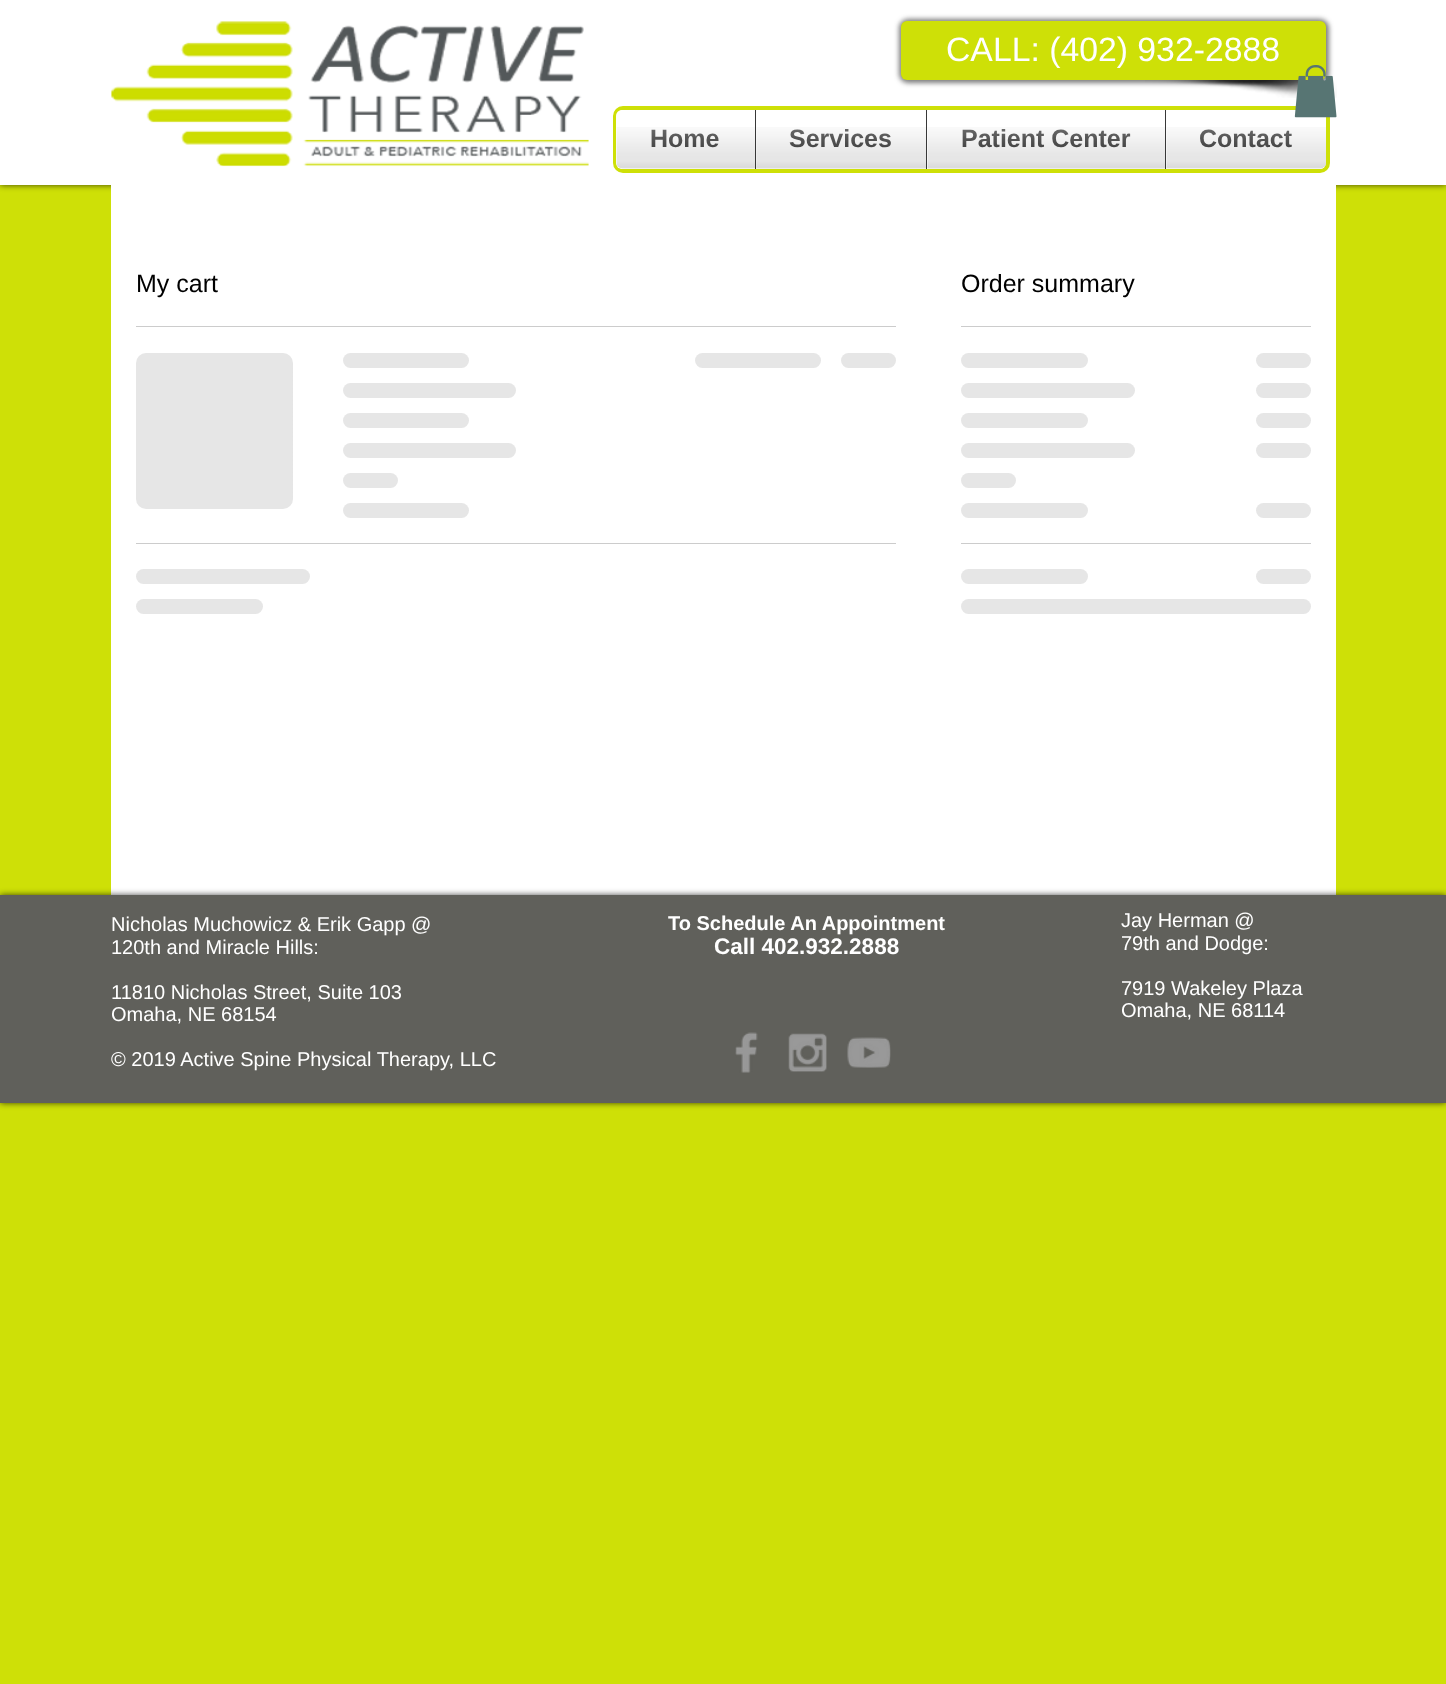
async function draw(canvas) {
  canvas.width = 1446;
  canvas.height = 1684;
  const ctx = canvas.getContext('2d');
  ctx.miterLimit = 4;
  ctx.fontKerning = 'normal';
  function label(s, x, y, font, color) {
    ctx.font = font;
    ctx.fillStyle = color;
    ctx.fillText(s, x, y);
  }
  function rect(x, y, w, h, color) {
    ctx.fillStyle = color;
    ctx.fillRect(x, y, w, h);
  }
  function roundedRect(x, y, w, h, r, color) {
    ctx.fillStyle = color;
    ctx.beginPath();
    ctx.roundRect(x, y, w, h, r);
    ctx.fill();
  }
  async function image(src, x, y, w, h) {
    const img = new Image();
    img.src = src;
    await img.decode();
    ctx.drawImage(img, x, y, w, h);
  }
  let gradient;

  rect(0, 0, 1446, 1684, '#cee007');
  ctx.fillStyle = '#000000b3';
  ctx.filter = 'blur(3px)';
  ctx.beginPath();
  ctx.rect(0, 0, 1446, 185);
  ctx.fill();
  ctx.filter = 'none';
  rect(0, 0, 1446, 185, '#fff');
  await image('assets/img1.png', 111, 21, 478, 146);
  await image('assets/img2.png', 1145, 80, 192, 18);
  ctx.fillStyle = '#383838a8';
  ctx.filter = 'blur(2.5px)';
  ctx.beginPath();
  ctx.roundRect(899, 19, 430, 64, 9);
  ctx.fill();
  ctx.filter = 'none';
  roundedRect(901, 21, 425, 59, 6, '#cee007');
  label('CALL: (402) 932-2888', 946, 61, '33.75px Liberation Sans', '#fff');
  ctx.beginPath();
  ctx.roundRect(615, 108, 713, 63, 8);
  ctx.strokeStyle = '#cee007';
  ctx.lineWidth = 4;
  ctx.stroke();
  await image('assets/img4.png', 616, 110, 711, 10);
  await image('assets/img5.png', 616, 163, 710, 6);
  ctx.beginPath();
  ctx.roundRect(1165, 110, 161, 59, [0, 6, 6, 0]);
  ctx.fill();
  label('Contact', 1199, 147, 'bold 25px Liberation Sans', '#383838');
  await image('assets/img12.png', 1200, 113, 126, 35);
  await image('assets/img3.png', 1294, 65, 43, 53);
  ctx.fillStyle = '#fff';
  ctx.beginPath();
  ctx.roundRect(616, 110, 139, 59, [6, 0, 0, 6]);
  ctx.fill();
  label('Home', 650, 147, 'bold 25px Liberation Sans', '#383838');
  await image('assets/img6.png', 652, 129, 67, 19);
  await image('assets/img7.png', 616, 127, 139, 42);
  rect(756, 163, 170, 6, '#fff');
  rect(755, 110, 1, 59, '#383838');
  label('Services', 789, 147, 'bold 25px Liberation Sans', '#383838');
  await image('assets/img8.png', 790, 128, 101, 20);
  await image('assets/img9.png', 756, 127, 170, 42);
  rect(927, 163, 238, 6, '#fff');
  rect(926, 110, 1, 59, '#383838');
  label('Patient Center', 961, 147, 'bold 25px Liberation Sans', '#383838');
  await image('assets/img10.png', 962, 128, 168, 20);
  await image('assets/img11.png', 927, 127, 238, 42);
  rect(1165, 110, 1, 59, '#383838');
  await image('assets/img13.png', 1166, 127, 160, 42);
  rect(111, 185, 1225, 710, '#fff');
  rect(136, 326, 760, 1, '#ccc');
  label('My cart', 136, 292, '25px Liberation Sans', '#000');
  gradient = ctx.createLinearGradient(136, 431, 761, 431);
  gradient.addColorStop(0.25, '#e6e6e6');
  gradient.addColorStop(0.37, '#ccc');
  gradient.addColorStop(0.63, '#e6e6e6');
  ctx.fillStyle = gradient;
  ctx.beginPath();
  ctx.roundRect(136, 353, 157, 156, 10);
  ctx.fill();
  gradient = ctx.createLinearGradient(343, 360, 848, 360);
  gradient.addColorStop(0.25, '#e6e6e6');
  gradient.addColorStop(0.37, '#ccc');
  gradient.addColorStop(0.63, '#e6e6e6');
  ctx.fillStyle = gradient;
  ctx.beginPath();
  ctx.roundRect(343, 353, 126, 15, 7.5);
  ctx.fill();
  gradient = ctx.createLinearGradient(343, 390, 1038, 390);
  gradient.addColorStop(0.25, '#e6e6e6');
  gradient.addColorStop(0.37, '#ccc');
  gradient.addColorStop(0.63, '#e6e6e6');
  ctx.fillStyle = gradient;
  ctx.beginPath();
  ctx.roundRect(343, 383, 173, 15, 7.5);
  ctx.fill();
  gradient = ctx.createLinearGradient(343, 420, 848, 420);
  gradient.addColorStop(0.25, '#e6e6e6');
  gradient.addColorStop(0.37, '#ccc');
  gradient.addColorStop(0.63, '#e6e6e6');
  ctx.fillStyle = gradient;
  ctx.beginPath();
  ctx.roundRect(343, 413, 126, 15, 7.5);
  ctx.fill();
  gradient = ctx.createLinearGradient(343, 450, 1038, 450);
  gradient.addColorStop(0.25, '#e6e6e6');
  gradient.addColorStop(0.37, '#ccc');
  gradient.addColorStop(0.63, '#e6e6e6');
  ctx.fillStyle = gradient;
  ctx.beginPath();
  ctx.roundRect(343, 443, 173, 15, 7.5);
  ctx.fill();
  gradient = ctx.createLinearGradient(343, 480, 563, 480);
  gradient.addColorStop(0.25, '#e6e6e6');
  gradient.addColorStop(0.37, '#ccc');
  gradient.addColorStop(0.63, '#e6e6e6');
  ctx.fillStyle = gradient;
  ctx.beginPath();
  ctx.roundRect(343, 473, 55, 15, 7.5);
  ctx.fill();
  gradient = ctx.createLinearGradient(343, 510, 848, 510);
  gradient.addColorStop(0.25, '#e6e6e6');
  gradient.addColorStop(0.37, '#ccc');
  gradient.addColorStop(0.63, '#e6e6e6');
  ctx.fillStyle = gradient;
  ctx.beginPath();
  ctx.roundRect(343, 503, 126, 15, 7.5);
  ctx.fill();
  gradient = ctx.createLinearGradient(695, 360, 1200, 360);
  gradient.addColorStop(0.25, '#e6e6e6');
  gradient.addColorStop(0.37, '#ccc');
  gradient.addColorStop(0.63, '#e6e6e6');
  ctx.fillStyle = gradient;
  ctx.beginPath();
  ctx.roundRect(695, 353, 126, 15, 7.5);
  ctx.fill();
  gradient = ctx.createLinearGradient(841, 360, 1061, 360);
  gradient.addColorStop(0.25, '#e6e6e6');
  gradient.addColorStop(0.37, '#ccc');
  gradient.addColorStop(0.63, '#e6e6e6');
  ctx.fillStyle = gradient;
  ctx.beginPath();
  ctx.roundRect(841, 353, 55, 15, 7.5);
  ctx.fill();
  rect(136, 543, 760, 1, '#ccc');
  gradient = ctx.createLinearGradient(136, 576, 831, 576);
  gradient.addColorStop(0.25, '#e6e6e6');
  gradient.addColorStop(0.37, '#ccc');
  gradient.addColorStop(0.63, '#e6e6e6');
  ctx.fillStyle = gradient;
  ctx.beginPath();
  ctx.roundRect(136, 569, 174, 15, 7.5);
  ctx.fill();
  gradient = ctx.createLinearGradient(136, 606, 641, 606);
  gradient.addColorStop(0.25, '#e6e6e6');
  gradient.addColorStop(0.37, '#ccc');
  gradient.addColorStop(0.63, '#e6e6e6');
  ctx.fillStyle = gradient;
  ctx.beginPath();
  ctx.roundRect(136, 599, 127, 15, 7.5);
  ctx.fill();
  rect(961, 326, 350, 1, '#ccc');
  label('Order summary', 961, 292, '25px Liberation Sans', '#000');
  gradient = ctx.createLinearGradient(961, 360, 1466, 360);
  gradient.addColorStop(0.25, '#e6e6e6');
  gradient.addColorStop(0.37, '#ccc');
  gradient.addColorStop(0.63, '#e6e6e6');
  ctx.fillStyle = gradient;
  ctx.beginPath();
  ctx.roundRect(961, 353, 127, 15, 7.5);
  ctx.fill();
  gradient = ctx.createLinearGradient(1256, 360, 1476, 360);
  gradient.addColorStop(0.25, '#e6e6e6');
  gradient.addColorStop(0.37, '#ccc');
  gradient.addColorStop(0.63, '#e6e6e6');
  ctx.fillStyle = gradient;
  ctx.beginPath();
  ctx.roundRect(1256, 353, 55, 15, 7.5);
  ctx.fill();
  gradient = ctx.createLinearGradient(961, 390, 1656, 390);
  gradient.addColorStop(0.25, '#e6e6e6');
  gradient.addColorStop(0.37, '#ccc');
  gradient.addColorStop(0.63, '#e6e6e6');
  ctx.fillStyle = gradient;
  ctx.beginPath();
  ctx.roundRect(961, 383, 174, 15, 7.5);
  ctx.fill();
  gradient = ctx.createLinearGradient(1256, 390, 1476, 390);
  gradient.addColorStop(0.25, '#e6e6e6');
  gradient.addColorStop(0.37, '#ccc');
  gradient.addColorStop(0.63, '#e6e6e6');
  ctx.fillStyle = gradient;
  ctx.beginPath();
  ctx.roundRect(1256, 383, 55, 15, 7.5);
  ctx.fill();
  gradient = ctx.createLinearGradient(961, 420, 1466, 420);
  gradient.addColorStop(0.25, '#e6e6e6');
  gradient.addColorStop(0.37, '#ccc');
  gradient.addColorStop(0.63, '#e6e6e6');
  ctx.fillStyle = gradient;
  ctx.beginPath();
  ctx.roundRect(961, 413, 127, 15, 7.5);
  ctx.fill();
  gradient = ctx.createLinearGradient(1256, 420, 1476, 420);
  gradient.addColorStop(0.25, '#e6e6e6');
  gradient.addColorStop(0.37, '#ccc');
  gradient.addColorStop(0.63, '#e6e6e6');
  ctx.fillStyle = gradient;
  ctx.beginPath();
  ctx.roundRect(1256, 413, 55, 15, 7.5);
  ctx.fill();
  gradient = ctx.createLinearGradient(961, 450, 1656, 450);
  gradient.addColorStop(0.25, '#e6e6e6');
  gradient.addColorStop(0.37, '#ccc');
  gradient.addColorStop(0.63, '#e6e6e6');
  ctx.fillStyle = gradient;
  ctx.beginPath();
  ctx.roundRect(961, 443, 174, 15, 7.5);
  ctx.fill();
  gradient = ctx.createLinearGradient(1256, 450, 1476, 450);
  gradient.addColorStop(0.25, '#e6e6e6');
  gradient.addColorStop(0.37, '#ccc');
  gradient.addColorStop(0.63, '#e6e6e6');
  ctx.fillStyle = gradient;
  ctx.beginPath();
  ctx.roundRect(1256, 443, 55, 15, 7.5);
  ctx.fill();
  gradient = ctx.createLinearGradient(961, 480, 1181, 480);
  gradient.addColorStop(0.25, '#e6e6e6');
  gradient.addColorStop(0.37, '#ccc');
  gradient.addColorStop(0.63, '#e6e6e6');
  ctx.fillStyle = gradient;
  ctx.beginPath();
  ctx.roundRect(961, 473, 55, 15, 7.5);
  ctx.fill();
  gradient = ctx.createLinearGradient(961, 510, 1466, 510);
  gradient.addColorStop(0.25, '#e6e6e6');
  gradient.addColorStop(0.37, '#ccc');
  gradient.addColorStop(0.63, '#e6e6e6');
  ctx.fillStyle = gradient;
  ctx.beginPath();
  ctx.roundRect(961, 503, 127, 15, 7.5);
  ctx.fill();
  gradient = ctx.createLinearGradient(1256, 510, 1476, 510);
  gradient.addColorStop(0.25, '#e6e6e6');
  gradient.addColorStop(0.37, '#ccc');
  gradient.addColorStop(0.63, '#e6e6e6');
  ctx.fillStyle = gradient;
  ctx.beginPath();
  ctx.roundRect(1256, 503, 55, 15, 7.5);
  ctx.fill();
  rect(961, 543, 350, 1, '#ccc');
  gradient = ctx.createLinearGradient(961, 576, 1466, 576);
  gradient.addColorStop(0.25, '#e6e6e6');
  gradient.addColorStop(0.37, '#ccc');
  gradient.addColorStop(0.63, '#e6e6e6');
  ctx.fillStyle = gradient;
  ctx.beginPath();
  ctx.roundRect(961, 569, 127, 15, 7.5);
  ctx.fill();
  gradient = ctx.createLinearGradient(1256, 576, 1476, 576);
  gradient.addColorStop(0.25, '#e6e6e6');
  gradient.addColorStop(0.37, '#ccc');
  gradient.addColorStop(0.63, '#e6e6e6');
  ctx.fillStyle = gradient;
  ctx.beginPath();
  ctx.roundRect(1256, 569, 55, 15, 7.5);
  ctx.fill();
  gradient = ctx.createLinearGradient(961, 606, 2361, 606);
  gradient.addColorStop(0.25, '#e6e6e6');
  gradient.addColorStop(0.37, '#ccc');
  gradient.addColorStop(0.63, '#e6e6e6');
  ctx.fillStyle = gradient;
  ctx.beginPath();
  ctx.roundRect(961, 599, 350, 15, 7.5);
  ctx.fill();
  ctx.fillStyle = '#000000b3';
  ctx.filter = 'blur(3px)';
  ctx.beginPath();
  ctx.rect(0, 895, 1446, 208);
  ctx.fill();
  ctx.filter = 'none';
  rect(0, 895, 1446, 208, '#60605b');
  label('Nicholas Muchowicz & Erik Gapp @', 111, 931, '20px Liberation Sans', '#fff');
  label('120th and Miracle Hills:', 111, 954, '20px Liberation Sans', '#fff');
  label('11810 Nicholas Street, Suite 103', 111, 999, '20px Liberation Sans', '#fff');
  label('Omaha, NE 68154', 111, 1021, '20px Liberation Sans', '#fff');
  label('© 2019 Active Spine Physical Therapy, LLC', 111, 1066, '20px Liberation Sans', '#fff');
  label('To Schedule An Appointment', 668, 930, 'bold 20px Liberation Sans', '#fff');
  label('Call 402.932.2888', 714, 954, 'bold 22.5px Liberation Sans', '#fff');
  label('Jay Herman @', 1121, 927, '20px Liberation Sans', '#fff');
  label('79th and Dodge:', 1121, 950, '20px Liberation Sans', '#fff');
  label('7919 Wakeley Plaza', 1121, 995, '20px Liberation Sans', '#fff');
  label('Omaha, NE 68114', 1121, 1017, '20px Liberation Sans', '#fff');
  await image('assets/img14.png', 735, 1032, 23, 41);
  await image('assets/img15.png', 788, 1033, 39, 39);
  await image('assets/img16.png', 847, 1037, 44, 31);
}

draw(document.querySelector('canvas'));
